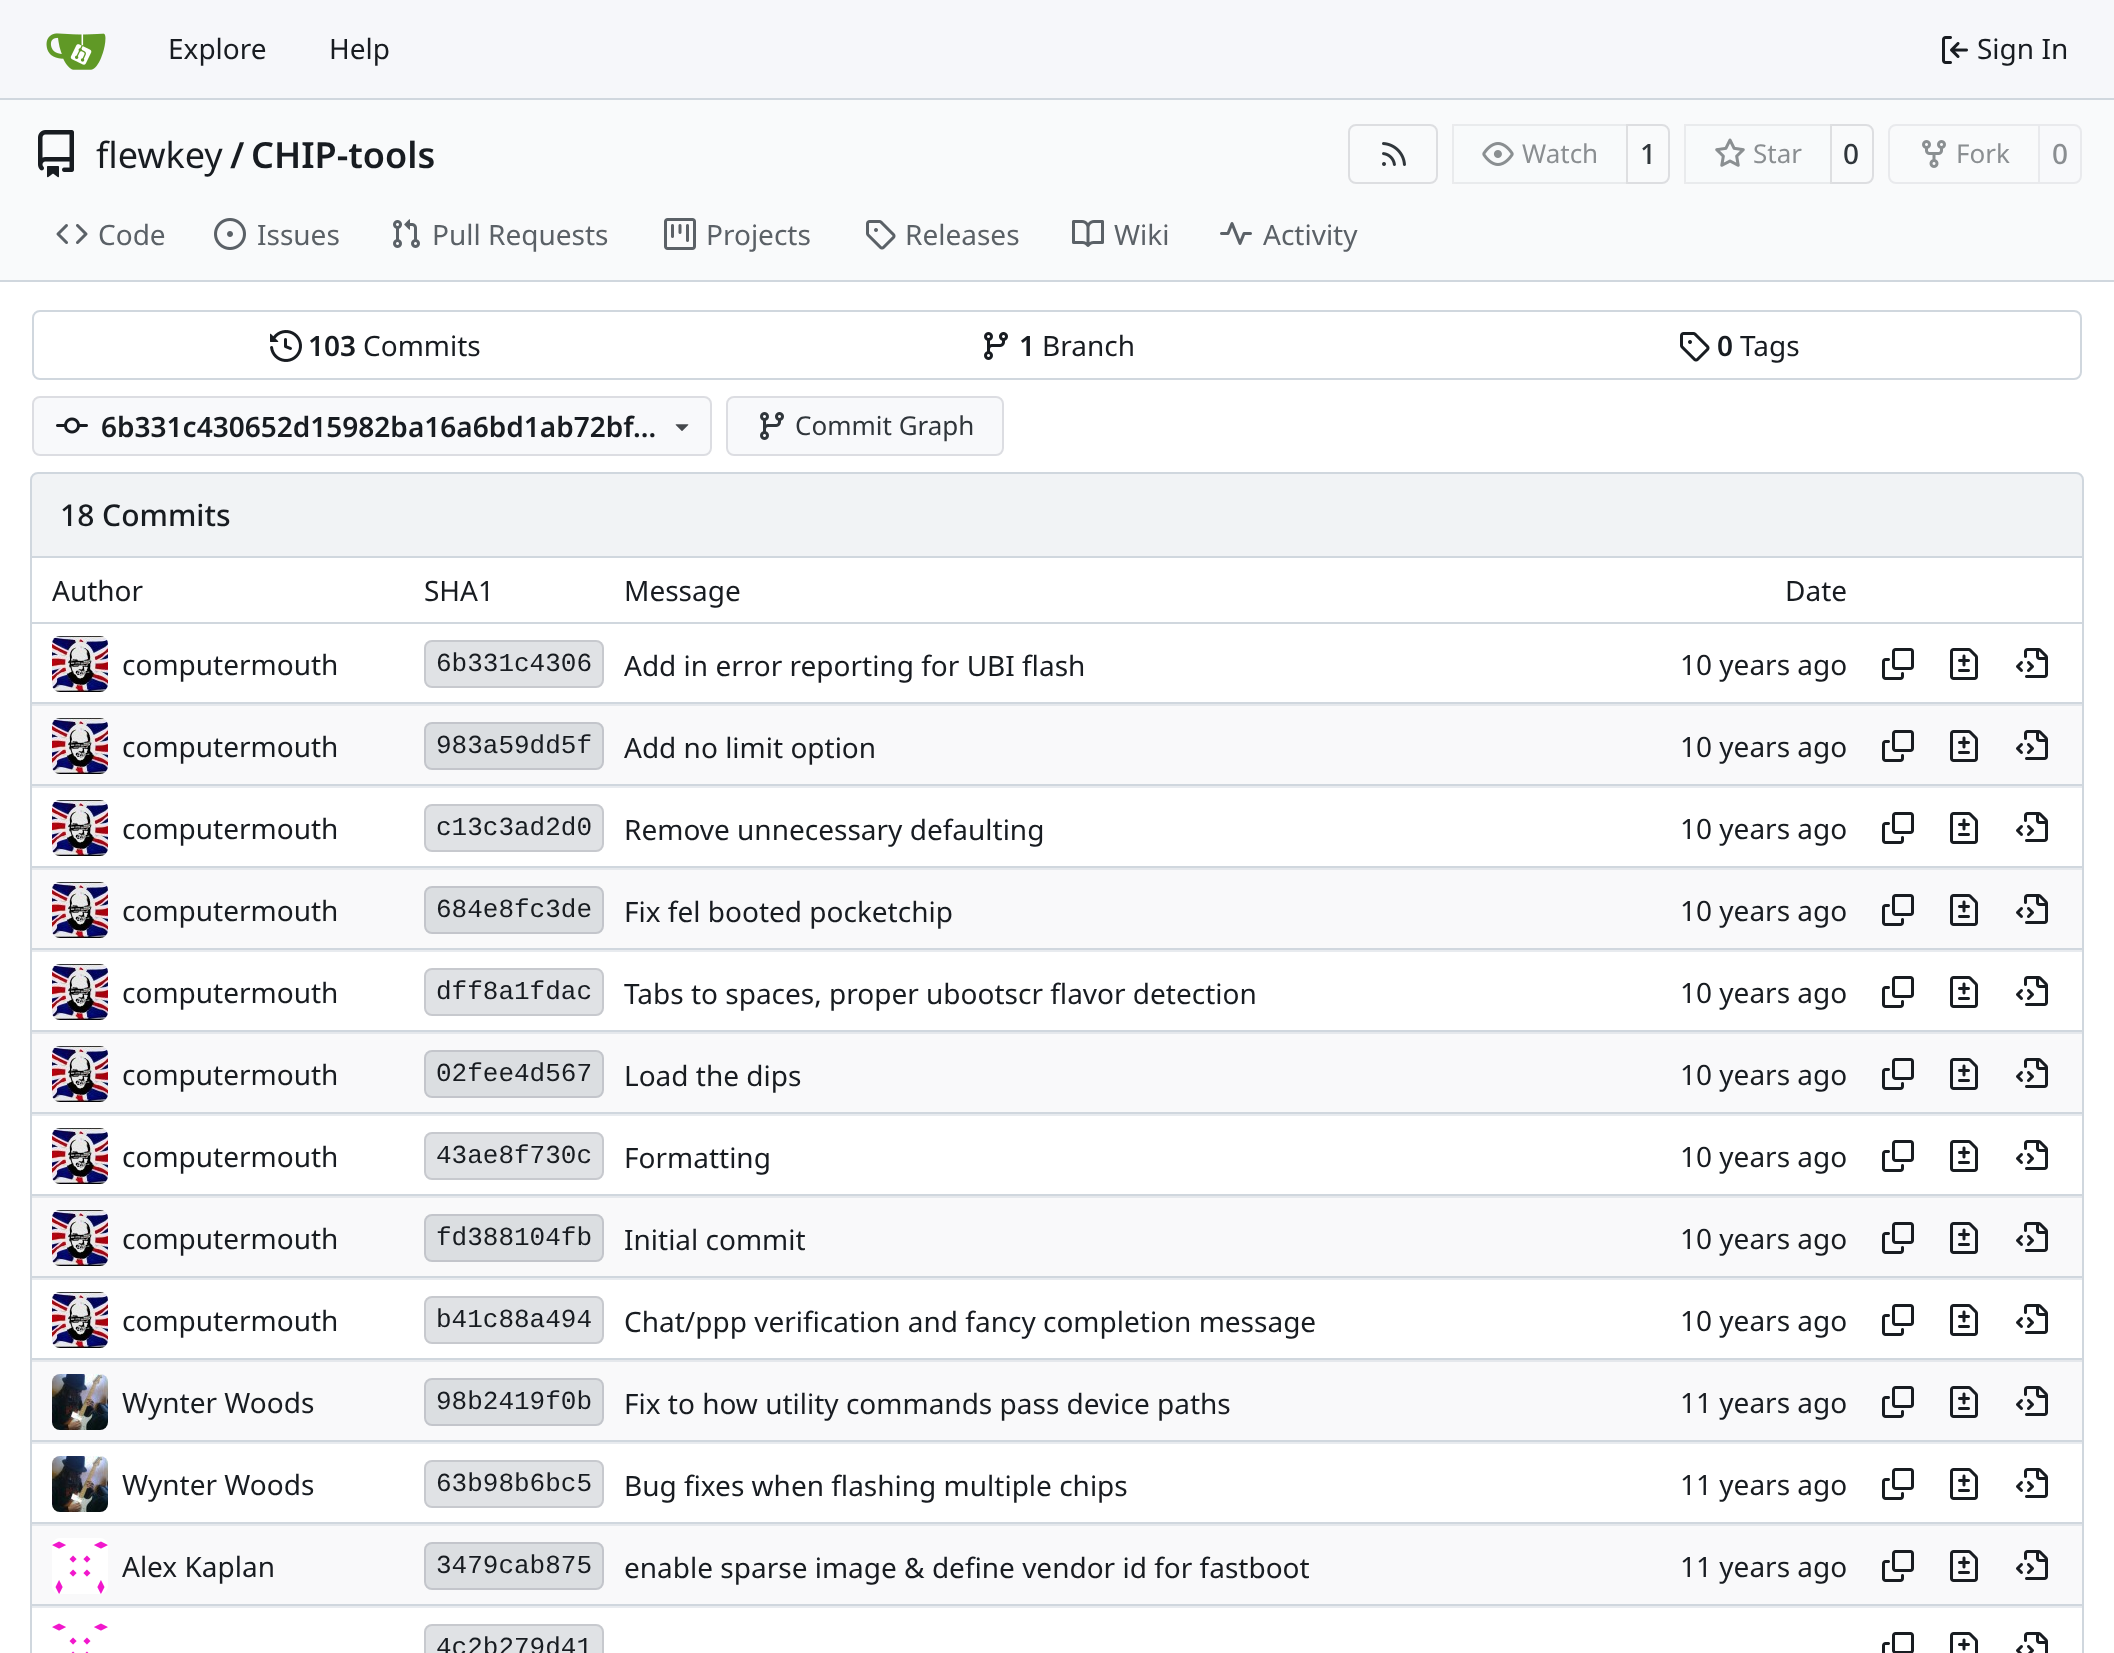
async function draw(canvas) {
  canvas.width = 2114;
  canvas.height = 1653;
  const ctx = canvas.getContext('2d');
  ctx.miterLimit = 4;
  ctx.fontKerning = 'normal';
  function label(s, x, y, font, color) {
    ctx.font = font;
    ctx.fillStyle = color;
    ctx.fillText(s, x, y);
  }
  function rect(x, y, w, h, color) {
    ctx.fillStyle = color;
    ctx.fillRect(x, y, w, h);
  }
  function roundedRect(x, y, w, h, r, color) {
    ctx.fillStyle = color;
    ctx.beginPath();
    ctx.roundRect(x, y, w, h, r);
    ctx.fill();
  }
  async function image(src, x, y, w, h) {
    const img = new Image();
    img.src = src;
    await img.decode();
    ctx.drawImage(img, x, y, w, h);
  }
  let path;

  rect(0, 0, 2114, 1653, '#fff');
  rect(0, 0, 2114, 98, '#f6f7fa');
  rect(0, 98, 2114, 2, '#d0d7de');
  await image('assets/img1.png', 46, 33, 60, 37);
  label('Explore', 168, 59, '28px Noto Sans', '#181c21');
  label('Help', 329, 59, '28px Noto Sans', '#181c21');
  await image('assets/img2.png', 1942, 36, 26, 28);
  label('Sign In', 1977, 59, '28px Noto Sans', '#181c21');
  rect(0, 100, 2114, 180, '#f9fafb');
  await image('assets/img3.png', 38, 130, 36, 48);
  label('flewkey', 96, 168, '36px Noto Sans', '#181c21');
  label('/', 230, 168, '600 36px Noto Sans', '#181c21');
  label('CHIP-tools', 251, 168, '600 36px Noto Sans', '#181c21');
  ctx.beginPath();
  ctx.roundRect(1349, 125, 88, 58, 7);
  ctx.strokeStyle = '#dddee1';
  ctx.lineWidth = 2;
  ctx.stroke();
  await image('assets/img4.png', 1382, 142, 24, 24);
  ctx.beginPath();
  ctx.roundRect(1627, 125, 42, 58, [0, 7, 7, 0]);
  ctx.stroke();
  ctx.fillStyle = '#f8f9fb8c';
  ctx.beginPath();
  ctx.roundRect(1452, 124, 176, 60, [8, 0, 0, 8]);
  ctx.fill();
  ctx.strokeStyle = '#0000170f';
  ctx.strokeRect(1453, 125, 174, 58);
  await image('assets/img5.png', 1482, 142, 32, 24);
  label('Watch', 1522, 163, '26px Noto Sans', '#8a8e91');
  label('1', 1640, 164, '500 28px Noto Sans', '#30363b');
  ctx.beginPath();
  ctx.roundRect(1831, 125, 42, 58, [0, 7, 7, 0]);
  ctx.strokeStyle = '#dddee1';
  ctx.stroke();
  ctx.fillStyle = '#f8f9fb8c';
  ctx.beginPath();
  ctx.roundRect(1684, 124, 148, 60, [8, 0, 0, 8]);
  ctx.fill();
  ctx.strokeStyle = '#0000170f';
  ctx.strokeRect(1685, 125, 146, 58);
  await image('assets/img6.png', 1715, 138, 30, 29);
  label('Star', 1753, 163, '26px Noto Sans', '#8a8e91');
  label('0', 1843, 164, '500 28px Noto Sans', '#30363b');
  ctx.beginPath();
  ctx.roundRect(1889, 125, 150, 58, [7, 0, 0, 7]);
  ctx.strokeStyle = '#e9eaed';
  ctx.stroke();
  await image('assets/img7.png', 1922, 140, 24, 28);
  label('Fork', 1956, 163, '26px Noto Sans', '#8a8e91');
  ctx.fillStyle = '#f8f9fb';
  ctx.beginPath();
  ctx.roundRect(2039, 125, 42, 58, [0, 7, 7, 0]);
  ctx.fill();
  ctx.stroke();
  label('0', 2052, 164, '500 28px Noto Sans', '#8a8e91');
  await image('assets/img8.png', 56, 224, 32, 20);
  label('Code', 98, 245, '28px Noto Sans', '#5b6167');
  await image('assets/img9.png', 214, 218, 32, 32);
  label('Issues', 257, 245, '28px Noto Sans', '#5b6167');
  await image('assets/img10.png', 393, 219, 27, 29);
  label('Pull Requests', 432, 245, '28px Noto Sans', '#5b6167');
  await image('assets/img11.png', 664, 218, 32, 32);
  label('Projects', 706, 245, '28px Noto Sans', '#5b6167');
  await image('assets/img12.png', 866, 220, 30, 30);
  label('Releases', 905, 245, '28px Noto Sans', '#5b6167');
  await image('assets/img13.png', 1072, 220, 32, 27);
  label('Wiki', 1114, 245, '28px Noto Sans', '#5b6167');
  await image('assets/img14.png', 1220, 222, 32, 23);
  label('Activity', 1263, 245, '28px Noto Sans', '#5b6167');
  rect(0, 280, 2114, 2, '#d0d7de');
  ctx.beginPath();
  ctx.roundRect(33, 311, 2048, 68, 7);
  ctx.strokeStyle = '#d0d7de';
  ctx.stroke();
  await image('assets/img15.png', 270, 330, 32, 32);
  label('103', 308, 356, '600 28px Noto Sans', '#181c21');
  label('Commits', 363, 356, '28px Noto Sans', '#181c21');
  await image('assets/img16.png', 984, 332, 24, 28);
  label('1', 1019, 356, '600 28px Noto Sans', '#181c21');
  label('Branch', 1042, 356, '28px Noto Sans', '#181c21');
  await image('assets/img17.png', 1680, 332, 30, 30);
  label('0', 1717, 356, '600 28px Noto Sans', '#181c21');
  label('Tags', 1740, 356, '28px Noto Sans', '#181c21');
  roundedRect(32, 396, 680, 60, 8, '#f8f9fb');
  ctx.beginPath();
  ctx.roundRect(33, 397, 678, 58, 7);
  ctx.strokeStyle = '#0000171c';
  ctx.stroke();
  await image('assets/img18.png', 56, 417, 32, 17);
  label('6b331c430652d15982ba16a6bd1ab72bf…', 101, 437, '600 28px Noto Sans', '#181c21');
  await image('assets/img19.png', 675, 424, 14, 7);
  roundedRect(726, 396, 278, 60, 8, '#f8f9fb');
  ctx.beginPath();
  ctx.roundRect(727, 397, 276, 58, 7);
  ctx.stroke();
  await image('assets/img20.png', 760, 412, 24, 28);
  label('Commit Graph', 795, 435, '26px Noto Sans', '#30363b');
  ctx.fillStyle = '#f1f3f5';
  ctx.beginPath();
  ctx.roundRect(31, 473, 2052, 84, [7, 7, 0, 0]);
  ctx.fill();
  ctx.strokeStyle = '#d0d7de';
  ctx.stroke();
  label('18 Commits', 60, 526, '500 30px Noto Sans', '#181c21');
  ctx.fillStyle = '#d0d7de';
  path = new Path2D('M30 558H2084V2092C2084 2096 2080 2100 2076 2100H38C34 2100 30 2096 30 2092ZM32 558H2082V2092C2082 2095 2079 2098 2076 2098H38C35 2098 32 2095 32 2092Z');
  ctx.fill(path, 'evenodd');
  rect(32, 622, 2050, 2, '#d0d7de');
  label('Author', 52, 601, '28px Noto Sans', '#181c21');
  label('SHA1', 424, 601, '28px Noto Sans', '#181c21');
  label('Message', 624, 601, '28px Noto Sans', '#181c21');
  label('Date', 1785, 601, '28px Noto Sans', '#181c21');
  rect(32, 702, 2050, 2, '#d0d7de');
  await image('assets/img21.png', 52, 636, 56, 56);
  label('computermouth', 122, 675, '28px Noto Sans', '#181c21');
  roundedRect(424, 640, 180, 48, 8, '#e0e2e5');
  ctx.beginPath();
  ctx.roundRect(425, 641, 178, 46, 7);
  ctx.strokeStyle = '#0000171c';
  ctx.stroke();
  label('6b331c4306', 436, 671, '26px Liberation Mono', '#181c21');
  label('Add in error reporting for UBI flash', 624, 676, '28px Noto Sans', '#181c21');
  label('10 years ago', 1680, 675, '28px Noto Sans', '#181c21');
  await image('assets/img22.png', 1882, 648, 32, 32);
  await image('assets/img23.png', 1950, 648, 28, 32);
  await image('assets/img24.png', 2016, 648, 32, 30);
  rect(32, 706, 2050, 78, '#f9f9fa');
  rect(32, 784, 2050, 2, '#d0d7de');
  rect(32, 704, 2050, 2, '#e5e8ec');
  await image('assets/img25.png', 52, 718, 56, 56);
  label('computermouth', 122, 757, '28px Noto Sans', '#181c21');
  roundedRect(424, 722, 180, 48, 8, '#dbdee1');
  ctx.beginPath();
  ctx.roundRect(425, 723, 178, 46, 7);
  ctx.stroke();
  label('983a59dd5f', 436, 753, '26px Liberation Mono', '#181c21');
  label('Add no limit option', 624, 758, '28px Noto Sans', '#181c21');
  label('10 years ago', 1680, 757, '28px Noto Sans', '#181c21');
  await image('assets/img26.png', 1882, 730, 32, 32);
  await image('assets/img27.png', 1950, 730, 28, 32);
  await image('assets/img28.png', 2016, 730, 32, 30);
  rect(32, 866, 2050, 2, '#d0d7de');
  rect(32, 786, 2050, 2, '#e8ebef');
  await image('assets/img21.png', 52, 800, 56, 56);
  label('computermouth', 122, 839, '28px Noto Sans', '#181c21');
  roundedRect(424, 804, 180, 48, 8, '#e0e2e5');
  ctx.beginPath();
  ctx.roundRect(425, 805, 178, 46, 7);
  ctx.stroke();
  label('c13c3ad2d0', 436, 835, '26px Liberation Mono', '#181c21');
  label('Remove unnecessary defaulting', 624, 840, '28px Noto Sans', '#181c21');
  label('10 years ago', 1680, 839, '28px Noto Sans', '#181c21');
  await image('assets/img22.png', 1882, 812, 32, 32);
  await image('assets/img23.png', 1950, 812, 28, 32);
  await image('assets/img24.png', 2016, 812, 32, 30);
  rect(32, 870, 2050, 78, '#f9f9fa');
  rect(32, 948, 2050, 2, '#d0d7de');
  rect(32, 868, 2050, 2, '#e5e8ec');
  await image('assets/img25.png', 52, 882, 56, 56);
  label('computermouth', 122, 921, '28px Noto Sans', '#181c21');
  roundedRect(424, 886, 180, 48, 8, '#dbdee1');
  ctx.beginPath();
  ctx.roundRect(425, 887, 178, 46, 7);
  ctx.stroke();
  label('684e8fc3de', 436, 917, '26px Liberation Mono', '#181c21');
  label('Fix fel booted pocketchip', 624, 922, '28px Noto Sans', '#181c21');
  label('10 years ago', 1680, 921, '28px Noto Sans', '#181c21');
  await image('assets/img26.png', 1882, 894, 32, 32);
  await image('assets/img27.png', 1950, 894, 28, 32);
  await image('assets/img28.png', 2016, 894, 32, 30);
  rect(32, 1030, 2050, 2, '#d0d7de');
  rect(32, 950, 2050, 2, '#e8ebef');
  await image('assets/img29.png', 52, 964, 56, 56);
  label('computermouth', 122, 1003, '28px Noto Sans', '#181c21');
  roundedRect(424, 968, 180, 48, 8, '#e0e2e5');
  ctx.beginPath();
  ctx.roundRect(425, 969, 178, 46, 7);
  ctx.stroke();
  label('dff8a1fdac', 436, 999, '26px Liberation Mono', '#181c21');
  label('Tabs to spaces, proper ubootscr flavor detection', 624, 1004, '28px Noto Sans', '#181c21');
  label('10 years ago', 1680, 1003, '28px Noto Sans', '#181c21');
  await image('assets/img22.png', 1882, 976, 32, 32);
  await image('assets/img23.png', 1950, 976, 28, 32);
  await image('assets/img24.png', 2016, 976, 32, 30);
  rect(32, 1034, 2050, 78, '#f9f9fa');
  rect(32, 1112, 2050, 2, '#d0d7de');
  rect(32, 1032, 2050, 2, '#e5e8ec');
  await image('assets/img25.png', 52, 1046, 56, 56);
  label('computermouth', 122, 1085, '28px Noto Sans', '#181c21');
  roundedRect(424, 1050, 180, 48, 8, '#dbdee1');
  ctx.beginPath();
  ctx.roundRect(425, 1051, 178, 46, 7);
  ctx.stroke();
  label('02fee4d567', 436, 1081, '26px Liberation Mono', '#181c21');
  label('Load the dips', 624, 1086, '28px Noto Sans', '#181c21');
  label('10 years ago', 1680, 1085, '28px Noto Sans', '#181c21');
  await image('assets/img26.png', 1882, 1058, 32, 32);
  await image('assets/img27.png', 1950, 1058, 28, 32);
  await image('assets/img28.png', 2016, 1058, 32, 30);
  rect(32, 1194, 2050, 2, '#d0d7de');
  rect(32, 1114, 2050, 2, '#e8ebef');
  await image('assets/img21.png', 52, 1128, 56, 56);
  label('computermouth', 122, 1167, '28px Noto Sans', '#181c21');
  roundedRect(424, 1132, 180, 48, 8, '#e0e2e5');
  ctx.beginPath();
  ctx.roundRect(425, 1133, 178, 46, 7);
  ctx.stroke();
  label('43ae8f730c', 436, 1163, '26px Liberation Mono', '#181c21');
  label('Formatting', 624, 1168, '28px Noto Sans', '#181c21');
  label('10 years ago', 1680, 1167, '28px Noto Sans', '#181c21');
  await image('assets/img22.png', 1882, 1140, 32, 32);
  await image('assets/img23.png', 1950, 1140, 28, 32);
  await image('assets/img24.png', 2016, 1140, 32, 30);
  rect(32, 1198, 2050, 78, '#f9f9fa');
  rect(32, 1276, 2050, 2, '#d0d7de');
  rect(32, 1196, 2050, 2, '#e5e8ec');
  await image('assets/img25.png', 52, 1210, 56, 56);
  label('computermouth', 122, 1249, '28px Noto Sans', '#181c21');
  roundedRect(424, 1214, 180, 48, 8, '#dbdee1');
  ctx.beginPath();
  ctx.roundRect(425, 1215, 178, 46, 7);
  ctx.stroke();
  label('fd388104fb', 436, 1245, '26px Liberation Mono', '#181c21');
  label('Initial commit', 624, 1250, '28px Noto Sans', '#181c21');
  label('10 years ago', 1680, 1249, '28px Noto Sans', '#181c21');
  await image('assets/img26.png', 1882, 1222, 32, 32);
  await image('assets/img27.png', 1950, 1222, 28, 32);
  await image('assets/img28.png', 2016, 1222, 32, 30);
  rect(32, 1358, 2050, 2, '#d0d7de');
  rect(32, 1278, 2050, 2, '#e8ebef');
  await image('assets/img21.png', 52, 1292, 56, 56);
  label('computermouth', 122, 1331, '28px Noto Sans', '#181c21');
  roundedRect(424, 1296, 180, 48, 8, '#e0e2e5');
  ctx.beginPath();
  ctx.roundRect(425, 1297, 178, 46, 7);
  ctx.stroke();
  label('b41c88a494', 436, 1327, '26px Liberation Mono', '#181c21');
  label('Chat/ppp verification and fancy completion message', 624, 1332, '28px Noto Sans', '#181c21');
  label('10 years ago', 1680, 1331, '28px Noto Sans', '#181c21');
  await image('assets/img22.png', 1882, 1304, 32, 32);
  await image('assets/img23.png', 1950, 1304, 28, 32);
  await image('assets/img24.png', 2016, 1304, 32, 30);
  rect(32, 1362, 2050, 78, '#f9f9fa');
  rect(32, 1440, 2050, 2, '#d0d7de');
  rect(32, 1360, 2050, 2, '#e5e8ec');
  await image('assets/img30.png', 52, 1374, 56, 56);
  label('Wynter Woods', 122, 1413, '28px Noto Sans', '#181c21');
  roundedRect(424, 1378, 180, 48, 8, '#dbdee1');
  ctx.beginPath();
  ctx.roundRect(425, 1379, 178, 46, 7);
  ctx.stroke();
  label('98b2419f0b', 436, 1409, '26px Liberation Mono', '#181c21');
  label('Fix to how utility commands pass device paths', 624, 1414, '28px Noto Sans', '#181c21');
  label('11 years ago', 1680, 1413, '28px Noto Sans', '#181c21');
  await image('assets/img26.png', 1882, 1386, 32, 32);
  await image('assets/img27.png', 1950, 1386, 28, 32);
  await image('assets/img28.png', 2016, 1386, 32, 30);
  rect(32, 1522, 2050, 2, '#d0d7de');
  rect(32, 1442, 2050, 2, '#e8ebef');
  await image('assets/img31.png', 52, 1456, 56, 56);
  label('Wynter Woods', 122, 1495, '28px Noto Sans', '#181c21');
  roundedRect(424, 1460, 180, 48, 8, '#e0e2e5');
  ctx.beginPath();
  ctx.roundRect(425, 1461, 178, 46, 7);
  ctx.stroke();
  label('63b98b6bc5', 436, 1491, '26px Liberation Mono', '#181c21');
  label('Bug fixes when flashing multiple chips', 624, 1496, '28px Noto Sans', '#181c21');
  label('11 years ago', 1680, 1495, '28px Noto Sans', '#181c21');
  await image('assets/img22.png', 1882, 1468, 32, 32);
  await image('assets/img23.png', 1950, 1468, 28, 32);
  await image('assets/img24.png', 2016, 1468, 32, 30);
  rect(32, 1526, 2050, 78, '#f9f9fa');
  rect(32, 1604, 2050, 2, '#d0d7de');
  rect(32, 1524, 2050, 2, '#e5e8ec');
  await image('assets/img32.png', 52, 1538, 56, 56);
  label('Alex Kaplan', 122, 1577, '28px Noto Sans', '#181c21');
  roundedRect(424, 1542, 180, 48, 8, '#dbdee1');
  ctx.beginPath();
  ctx.roundRect(425, 1543, 178, 46, 7);
  ctx.stroke();
  label('3479cab875', 436, 1573, '26px Liberation Mono', '#181c21');
  label('enable sparse image & define vendor id for fastboot', 624, 1578, '28px Noto Sans', '#181c21');
  label('11 years ago', 1680, 1577, '28px Noto Sans', '#181c21');
  await image('assets/img26.png', 1882, 1550, 32, 32);
  await image('assets/img27.png', 1950, 1550, 28, 32);
  await image('assets/img28.png', 2016, 1550, 32, 30);
  rect(32, 1606, 2050, 2, '#e8ebef');
  await image('assets/img33.png', 52, 1623, 56, 30);
  roundedRect(424, 1624, 180, 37, 8, '#e0e2e5');
  ctx.beginPath();
  ctx.roundRect(425, 1625, 178, 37, 7);
  ctx.stroke();
  label('4c2b279d41', 436, 1655, '26px Liberation Mono', '#181c21');
  await image('assets/img34.png', 1882, 1632, 32, 21);
  await image('assets/img35.png', 1950, 1632, 28, 21);
  await image('assets/img36.png', 2016, 1632, 32, 21);
}

draw(document.querySelector('canvas'));
